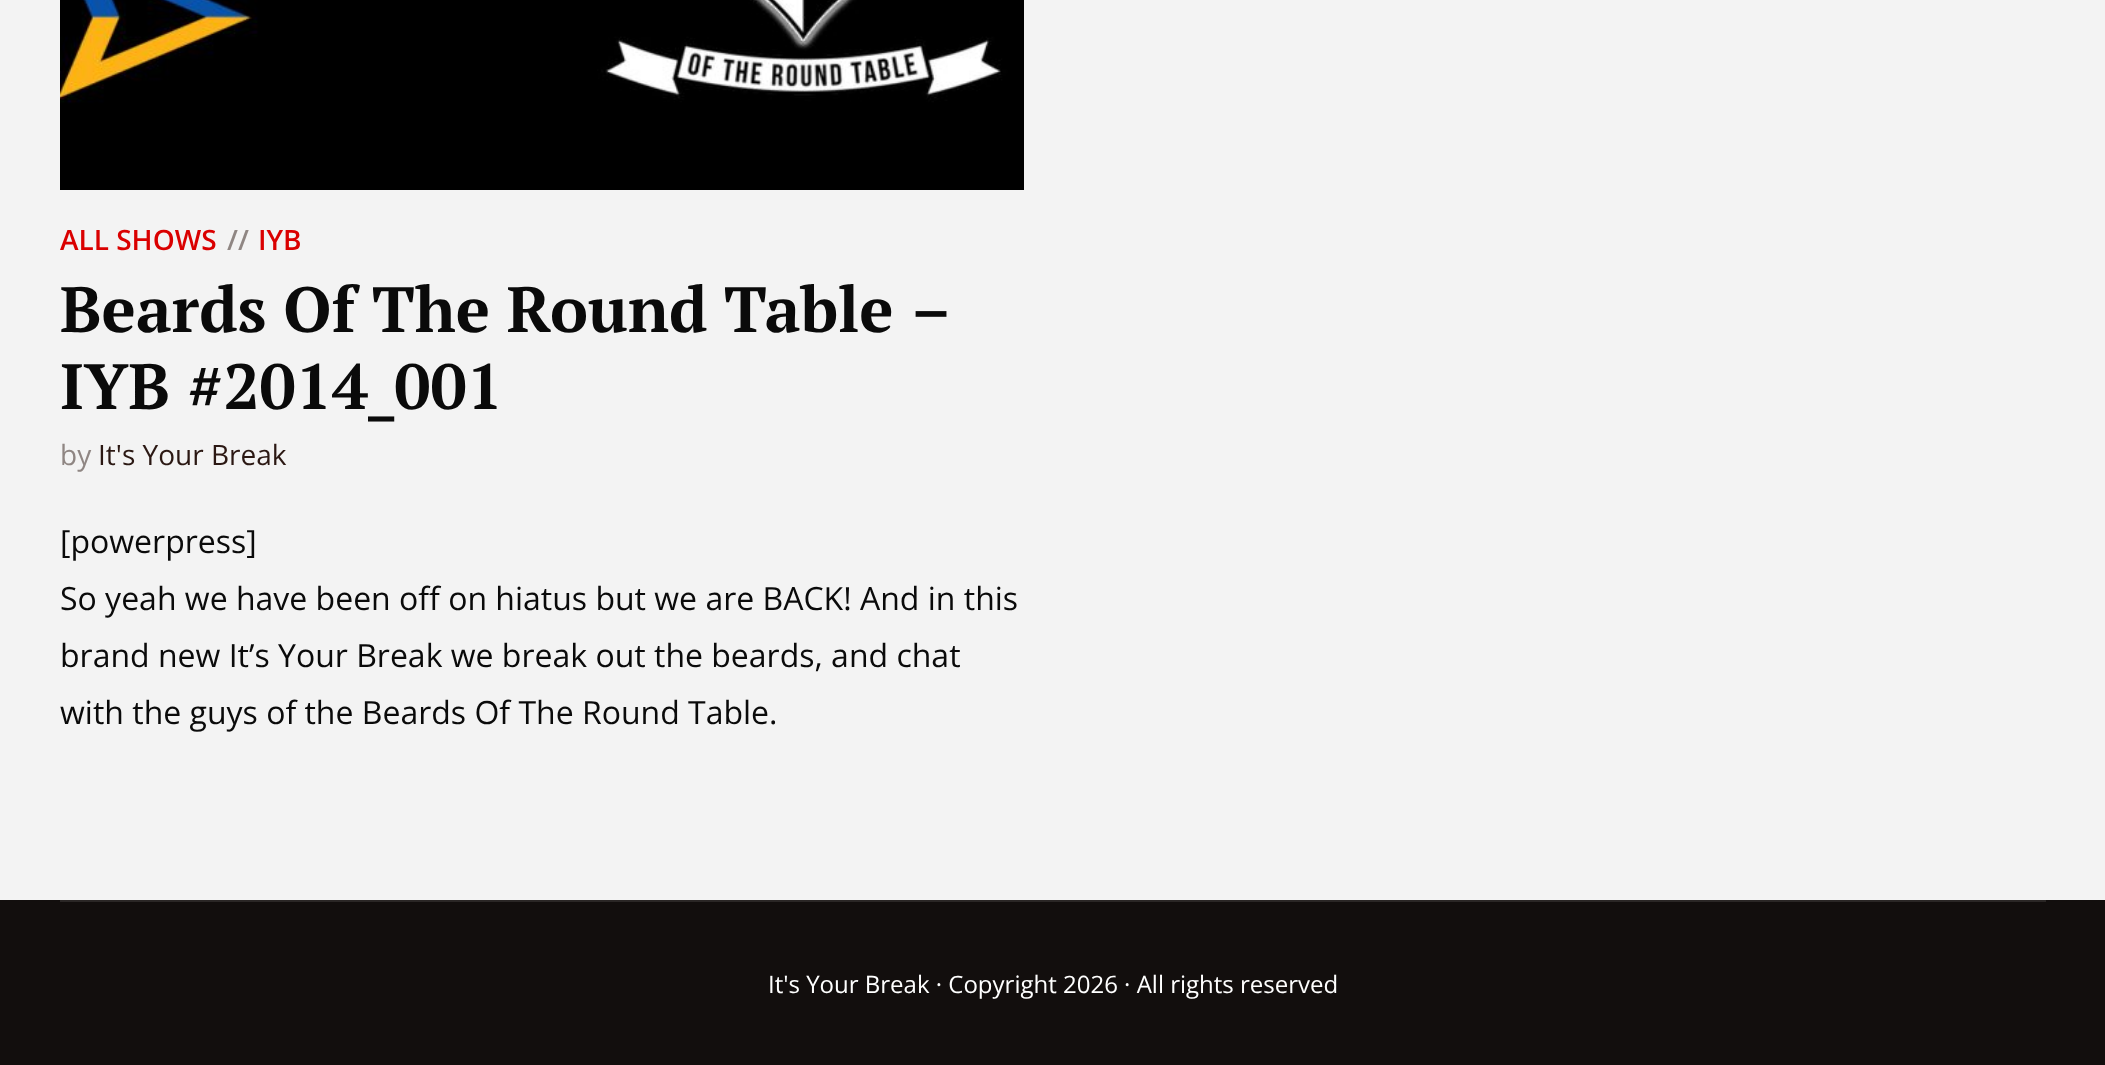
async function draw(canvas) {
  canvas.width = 2105;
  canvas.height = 1065;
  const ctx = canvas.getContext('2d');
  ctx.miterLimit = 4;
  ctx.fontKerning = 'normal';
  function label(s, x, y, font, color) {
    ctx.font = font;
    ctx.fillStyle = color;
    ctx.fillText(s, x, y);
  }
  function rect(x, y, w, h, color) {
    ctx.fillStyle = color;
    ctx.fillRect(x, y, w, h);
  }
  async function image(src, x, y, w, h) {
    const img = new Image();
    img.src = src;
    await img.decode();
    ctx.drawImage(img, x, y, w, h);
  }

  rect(0, 0, 2105, 1065, '#f3f3f3');
  await image('assets/img1.png', 60, 0, 964, 190);
  label('ALL SHOWS', 60, 250, '600 28px Open Sans', '#da0000');
  label('//', 227, 250, '600 28px Open Sans', '#8f8683');
  label('IYB', 258, 250, '600 28px Open Sans', '#da0000');
  ctx.wordSpacing = '-0.5px';
  label('Beards Of The Round Table', 60, 332, 'bold 64px PT Serif', '#0a0a0a');
  ctx.wordSpacing = '0px';
  label('–', 911, 332, 'bold 64px PT Serif', '#0a0a0a');
  label('IYB #2014_001', 60, 409, 'bold 64px PT Serif', '#0a0a0a');
  label('by', 60, 465, '28px Open Sans', '#8f8683');
  label('It\'s Your Break', 98, 465, '28px Open Sans', '#2b1813');
  label('[powerpress]', 60, 553, '32px Open Sans', '#0a0a0a');
  label('So yeah we have been off on hiatus but we are BACK! And in this', 60, 610, '32px Open Sans', '#0a0a0a');
  label('brand new It’s Your Break we break out the beards, and chat', 60, 667, '32px Open Sans', '#0a0a0a');
  label('with the guys of the Beards Of The Round Table.', 60, 724, '32px Open Sans', '#0a0a0a');
  rect(0, 900, 2105, 165, '#120e0d');
  rect(60, 900, 1986, 2, '#2a2625');
  label('It\'s Your Break · Copyright 2026 · All rights reserved', 768, 993, '24px Open Sans', '#fff');
}

draw(document.querySelector('canvas'));
